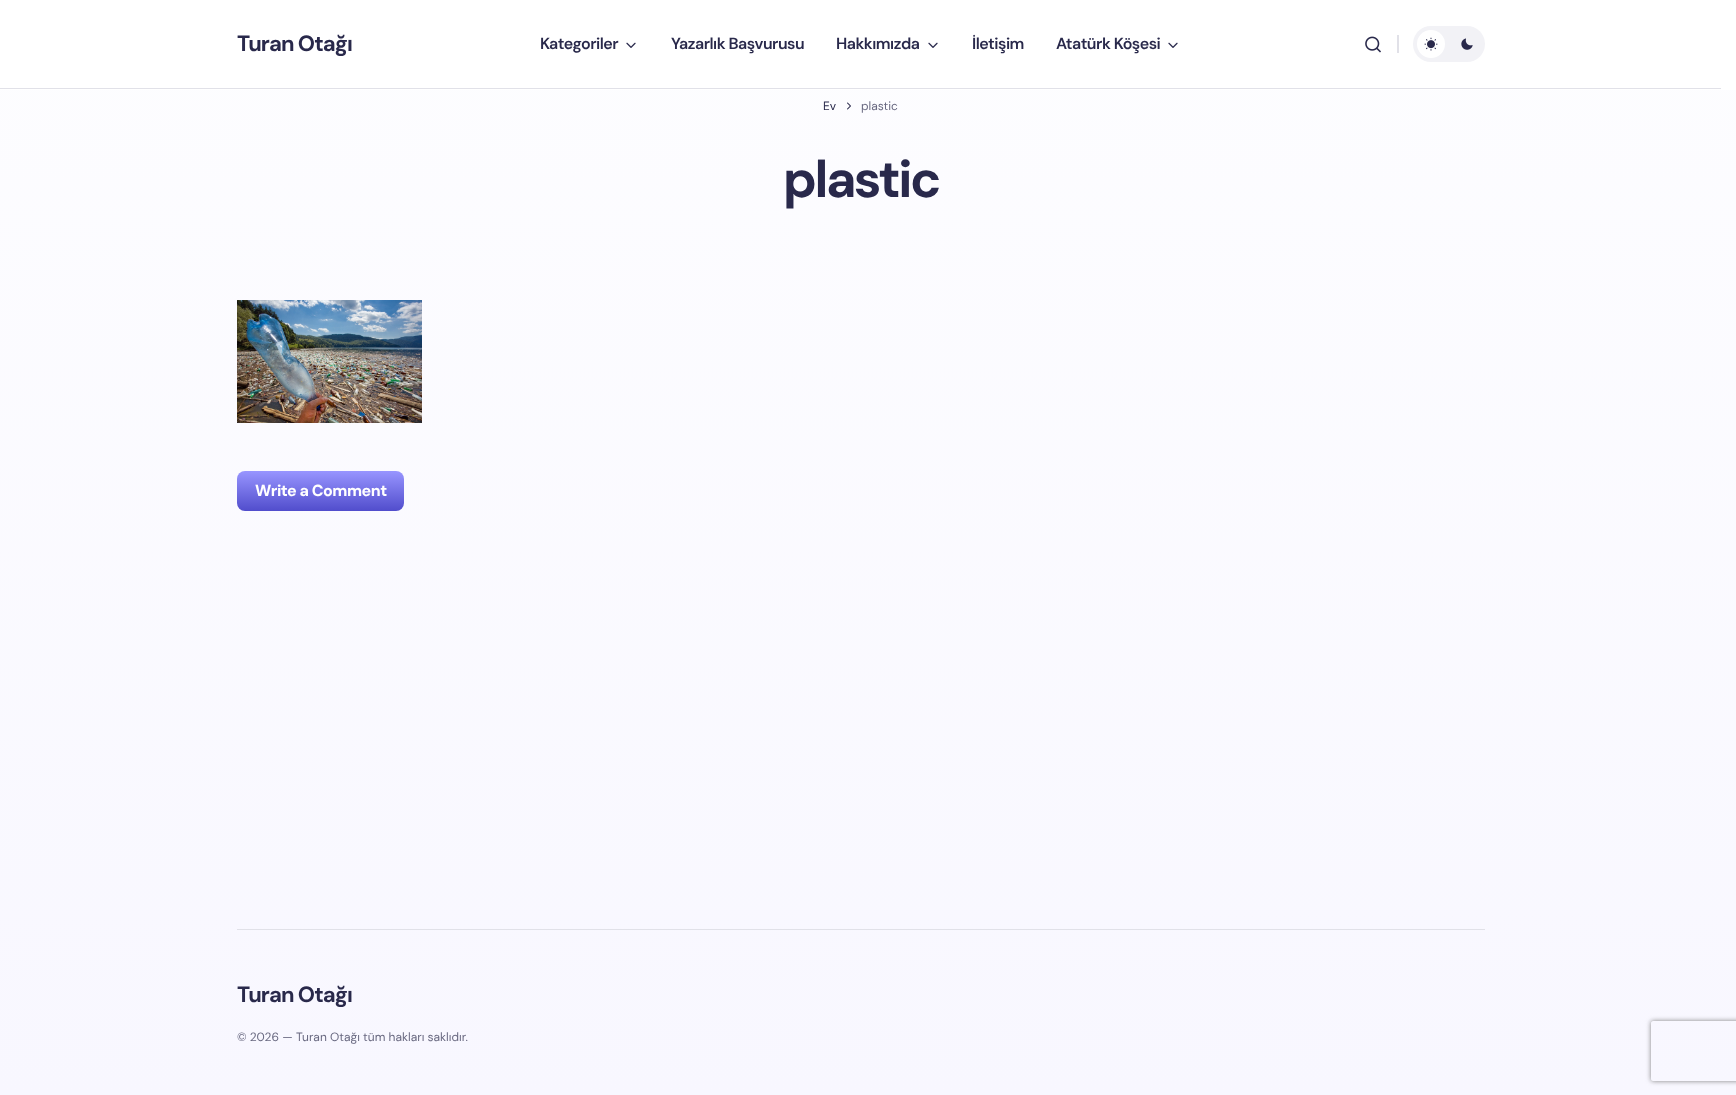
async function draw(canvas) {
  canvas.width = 1736;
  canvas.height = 1095;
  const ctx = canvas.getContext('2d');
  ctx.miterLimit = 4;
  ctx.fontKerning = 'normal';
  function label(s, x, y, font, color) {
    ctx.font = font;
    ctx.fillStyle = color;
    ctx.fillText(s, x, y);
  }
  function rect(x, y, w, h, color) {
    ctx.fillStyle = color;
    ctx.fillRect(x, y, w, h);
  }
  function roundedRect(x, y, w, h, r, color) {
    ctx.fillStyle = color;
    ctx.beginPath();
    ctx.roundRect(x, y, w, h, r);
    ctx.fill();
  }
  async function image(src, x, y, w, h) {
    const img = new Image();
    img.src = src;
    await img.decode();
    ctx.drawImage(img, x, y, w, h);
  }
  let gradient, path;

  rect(0, 0, 1736, 1095, '#fff');
  gradient = ctx.createLinearGradient(860, 0, 861, 1095);
  gradient.addColorStop(0, '#fdfdff');
  gradient.addColorStop(1, '#f8f7ff');
  ctx.fillStyle = gradient;
  ctx.fillRect(0, 90, 1736, 1005);
  ctx.letterSpacing = '-0.9px';
  label('Turan Otağı', 237, 51, 'bold 22px DM Sans', '#29294b');
  ctx.letterSpacing = '-0.5px';
  label('Kategoriler', 540, 49, '600 16px DM Sans', '#29294b');
  await image('assets/img1.png', 626, 42, 10, 6);
  label('Yazarlık Başvurusu', 671, 49, '600 16px DM Sans', '#29294b');
  label('Hakkımızda', 836, 49, '600 16px DM Sans', '#29294b');
  await image('assets/img1.png', 928, 42, 10, 6);
  label('İletişim', 972, 49, '600 16px DM Sans', '#29294b');
  label('Atatürk Köşesi', 1056, 49, '600 16px DM Sans', '#29294b');
  await image('assets/img1.png', 1168, 42, 10, 6);
  await image('assets/img2.png', 1365, 36, 16, 17);
  rect(1397, 35, 2, 18, '#e1e1e8');
  roundedRect(1413, 26, 72, 36, 18, '#f2f2f6');
  ctx.fillStyle = '#fff';
  ctx.beginPath();
  ctx.arc(1431, 44, 14, 0, 2 * Math.PI);
  ctx.fill();
  await image('assets/img3.png', 1424, 37, 14, 14);
  await image('assets/img4.png', 1461, 38, 12, 12);
  rect(0, 88, 1721, 1, '#e1e1e8');
  ctx.letterSpacing = '0px';
  label('Ev', 823, 110, '12px DM Sans', '#29294b');
  await image('assets/img5.png', 847, 102, 4, 8);
  label('plastic', 861, 110, '12px DM Sans', '#696981');
  ctx.letterSpacing = '-2.5px';
  label('plastic', 783, 197, 'bold 52px DM Sans', '#29294b');
  await image('assets/img6.png', 237, 300, 185, 123);
  gradient = ctx.createLinearGradient(321, 471, 321, 511);
  gradient.addColorStop(0, '#9895ff');
  gradient.addColorStop(1, '#514dcc');
  ctx.fillStyle = gradient;
  ctx.beginPath();
  ctx.roundRect(237, 471, 167, 40, 8);
  ctx.fill();
  ctx.letterSpacing = '-0.5px';
  label('Write a Comment', 255, 496, '800 16px DM Sans', '#fff');
  rect(237, 929, 1248, 1, '#e1e1e8');
  ctx.letterSpacing = '-0.9px';
  label('Turan Otağı', 237, 1002, 'bold 22px DM Sans', '#29294b');
  ctx.letterSpacing = '0px';
  label('© 2026 — Turan Otağı tüm hakları saklıdır.', 237, 1041, '12px DM Sans', '#696981');
  ctx.save();
  path = new Path2D('M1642 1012H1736V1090H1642ZM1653 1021H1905C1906 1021 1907 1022 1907 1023V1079C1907 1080 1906 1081 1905 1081H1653C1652 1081 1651 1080 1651 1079V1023C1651 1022 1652 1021 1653 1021Z');
  ctx.clip(path, 'evenodd');
  ctx.fillStyle = '#808080';
  ctx.filter = 'blur(2.5px)';
  ctx.beginPath();
  ctx.roundRect(1651, 1021, 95, 60, 2);
  ctx.fill();
  ctx.filter = 'none';
  ctx.restore();
}

draw(document.querySelector('canvas'));
